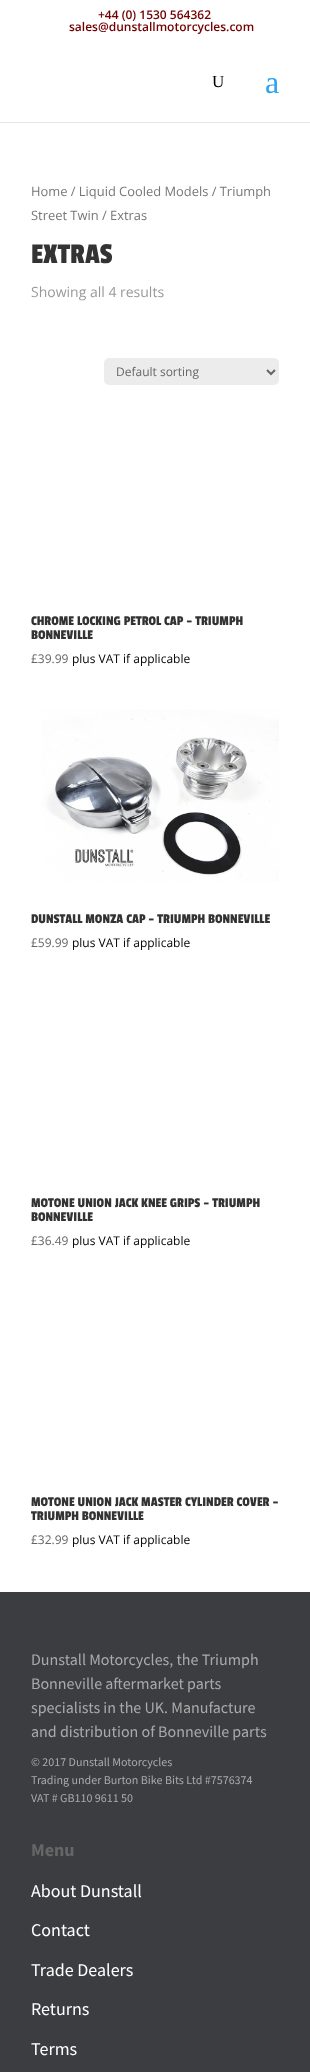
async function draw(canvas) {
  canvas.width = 310;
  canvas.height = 2072;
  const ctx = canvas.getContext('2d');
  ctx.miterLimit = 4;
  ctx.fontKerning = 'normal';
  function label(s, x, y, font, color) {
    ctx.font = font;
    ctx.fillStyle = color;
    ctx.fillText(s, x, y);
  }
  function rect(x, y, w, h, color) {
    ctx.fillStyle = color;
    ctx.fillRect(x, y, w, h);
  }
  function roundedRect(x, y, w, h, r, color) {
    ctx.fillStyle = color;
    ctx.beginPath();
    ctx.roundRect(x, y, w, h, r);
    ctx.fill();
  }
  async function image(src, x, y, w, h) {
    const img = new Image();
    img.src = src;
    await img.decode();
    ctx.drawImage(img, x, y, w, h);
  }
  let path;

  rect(0, 0, 310, 2072, '#fff');
  label('+44 (0) 1530 564362', 98, 19, '600 12px Open Sans', '#720000');
  label('sales@dunstallmotorcycles.com', 69, 31, '600 12px Open Sans', '#720000');
  rect(0, 122, 310, 1, '#e6e6e6');
  label('U', 212, 87, '17px Liberation Serif', '#000');
  label('a', 265, 93, '32px Liberation Serif', '#2ea3f2');
  label('Home / Liquid Cooled Models / Triumph', 31, 196, '12.9px Open Sans', '#777');
  label('Street Twin / Extras', 31, 220, '12.9px Open Sans', '#777');
  label('EXTRAS', 31, 263, '30px Passion One', '#333');
  label('Showing all 4 results', 31, 297, '14px Open Sans', '#999');
  roundedRect(104, 358, 175, 27, 5, '#ececec');
  path = new Path2D('M267 370L271 374L275 370');
  ctx.strokeStyle = '#666';
  ctx.lineWidth = 2;
  ctx.stroke(path);
  label('Default sorting', 116, 376, '12px Open Sans', '#666');
  label('CHROME LOCKING PETROL CAP – TRIUMPH', 31, 625, '14px Passion One', '#333');
  label('BONNEVILLE', 31, 639, '14px Passion One', '#333');
  label('£39.99', 31, 663, '12px Open Sans', '#666');
  label('plus VAT if applicable', 72, 663, '12px Open Sans', '#000');
  await image('assets/img1.png', 41, 709, 238, 173);
  label('DUNSTALL MONZA CAP – TRIUMPH BONNEVILLE', 31, 923, '14px Passion One', '#333');
  label('£59.99', 31, 947, '12px Open Sans', '#666');
  label('plus VAT if applicable', 72, 947, '12px Open Sans', '#000');
  label('MOTONE UNION JACK KNEE GRIPS – TRIUMPH', 31, 1207, '14px Passion One', '#333');
  label('BONNEVILLE', 31, 1221, '14px Passion One', '#333');
  label('£36.49', 31, 1245, '12px Open Sans', '#666');
  label('plus VAT if applicable', 72, 1245, '12px Open Sans', '#000');
  label('MOTONE UNION JACK MASTER CYLINDER COVER –', 31, 1506, '14px Passion One', '#333');
  label('TRIUMPH BONNEVILLE', 31, 1520, '14px Passion One', '#333');
  label('£32.99', 31, 1544, '12px Open Sans', '#666');
  label('plus VAT if applicable', 72, 1544, '12px Open Sans', '#000');
  rect(0, 1592, 310, 480, '#3c3d41');
  label('Dunstall Motorcycles, the Triumph', 31, 1665, '16px Source Sans Pro', '#aaa');
  label('Bonneville aftermarket parts', 31, 1689, '16px Source Sans Pro', '#aaa');
  label('specialists in the UK. Manufacture', 31, 1713, '16px Source Sans Pro', '#aaa');
  label('and distribution of Bonneville parts', 31, 1737, '16px Source Sans Pro', '#aaa');
  label('© 2017 Dunstall Motorcycles', 31, 1766, '12px Source Sans Pro', '#aaa');
  label('Trading under Burton Bike Bits Ltd #7576374', 31, 1784, '12px Source Sans Pro', '#aaa');
  label('VAT # GB110 9611 50', 31, 1802, '12px Source Sans Pro', '#aaa');
  label('Menu', 31, 1856, 'bold 18px Source Sans Pro', '#666');
  label('About Dunstall', 31, 1897, '18px Source Sans Pro', '#fff');
  label('Contact', 31, 1936, '18px Source Sans Pro', '#fff');
  label('Trade Dealers', 31, 1976, '18px Source Sans Pro', '#fff');
  label('Returns', 31, 2015, '18px Source Sans Pro', '#fff');
  label('Terms', 31, 2055, '18px Source Sans Pro', '#fff');
}

draw(document.querySelector('canvas'));
